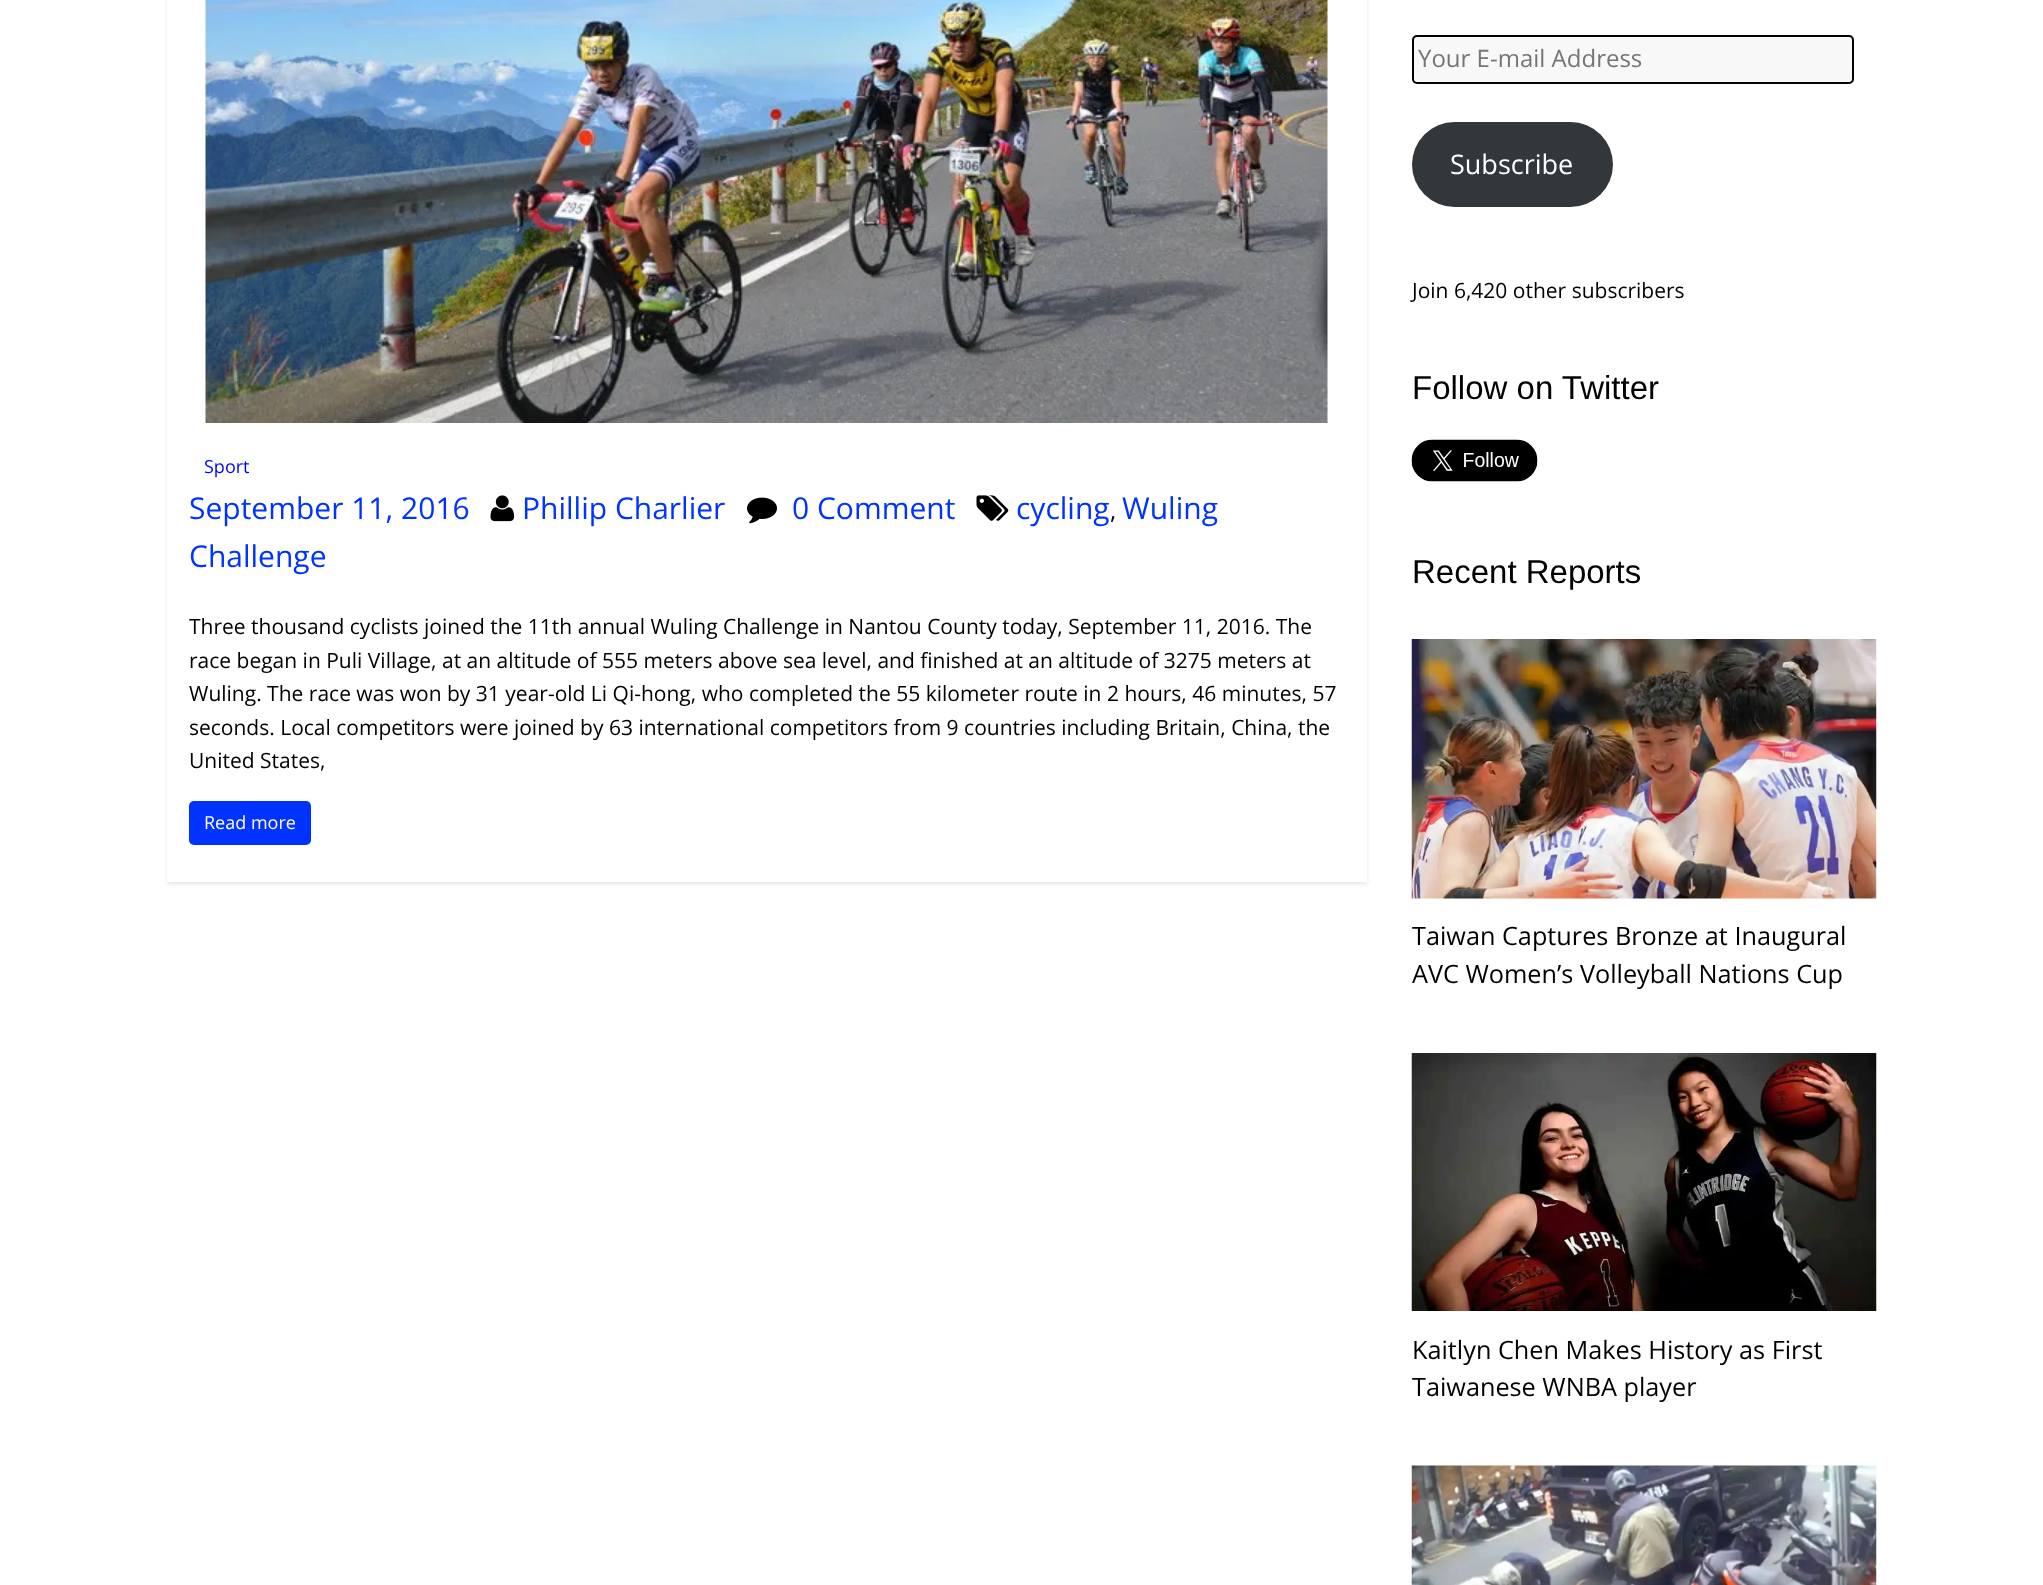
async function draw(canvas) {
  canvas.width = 2043;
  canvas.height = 1585;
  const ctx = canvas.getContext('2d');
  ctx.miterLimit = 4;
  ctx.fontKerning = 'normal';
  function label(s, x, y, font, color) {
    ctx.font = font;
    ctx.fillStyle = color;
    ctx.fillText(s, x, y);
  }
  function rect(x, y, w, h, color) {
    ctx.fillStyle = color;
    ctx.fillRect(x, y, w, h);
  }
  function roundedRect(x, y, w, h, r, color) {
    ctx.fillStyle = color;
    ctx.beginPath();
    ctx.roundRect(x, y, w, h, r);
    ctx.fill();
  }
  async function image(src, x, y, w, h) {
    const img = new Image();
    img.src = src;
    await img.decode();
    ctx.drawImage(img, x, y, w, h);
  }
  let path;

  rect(0, 0, 2043, 1585, '#fff');
  ctx.save();
  path = new Path2D('M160 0H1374V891H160ZM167-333H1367V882H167Z');
  ctx.clip(path, 'evenodd');
  ctx.fillStyle = '#0000001a';
  ctx.filter = 'blur(2px)';
  ctx.beginPath();
  ctx.rect(167, -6, 1200, 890);
  ctx.fill();
  ctx.filter = 'none';
  ctx.restore();
  await image('assets/img1.png', 205, 0, 1123, 423);
  label('Sport', 204, 473, '18px Open Sans', '#00f');
  label('September 11, 2016', 189, 519, '30px Open Sans', '#03f');
  await image('assets/img2.png', 976, 495, 33, 26);
  label('cycling', 1016, 519, '30px Open Sans', '#03f');
  label(',', 1110, 519, '24px Open Sans', '#000');
  label('Wuling', 1122, 519, '30px Open Sans', '#03f');
  label('Challenge', 189, 567, '30px Open Sans', '#03f');
  await image('assets/img3.png', 490, 495, 25, 27);
  label('Phillip Charlier', 522, 519, '30px Open Sans', '#03f');
  await image('assets/img4.png', 747, 497, 30, 27);
  label('0 Comment', 792, 519, '30px Open Sans', '#03f');
  label('Three thousand cyclists joined the 11th annual Wuling Challenge in Nantou County today, September 11, 2016. The', 189, 634, '21px Open Sans', '#000');
  label('race began in Puli Village, at an altitude of 555 meters above sea level, and finished at an altitude of 3275 meters at', 189, 668, '21px Open Sans', '#000');
  label('Wuling. The race was won by 31 year-old Li Qi-hong, who completed the 55 kilometer route in 2 hours, 46 minutes, 57', 189, 701, '21px Open Sans', '#000');
  label('seconds. Local competitors were joined by 63 international competitors from 9 countries including Britain, China, the', 189, 735, '21px Open Sans', '#000');
  label('United States,', 189, 768, '21px Open Sans', '#000');
  roundedRect(189, 801, 122, 44, 5, '#03f');
  label('Read more', 204, 829, '18px Open Sans', '#fff');
  ctx.fillStyle = '#f8f8f8';
  ctx.beginPath();
  ctx.roundRect(1413, 36, 440, 47, 4);
  ctx.fill();
  ctx.strokeStyle = '#000';
  ctx.lineWidth = 2;
  ctx.stroke();
  label('Your E-mail Address', 1418, 67, '24px Open Sans', '#757575');
  roundedRect(1412, 122, 201, 85, 42.5, '#32373c');
  label('Subscribe', 1450, 174, '27px Open Sans', '#fff');
  label('Join 6,420 other subscribers', 1412, 298, '21px Open Sans', '#000');
  label('Follow on Twitter', 1412, 399, '33px Liberation Sans', '#000');
  await image('assets/img5.png', 1411, 439, 127, 43);
  label('Recent Reports', 1412, 583, '33px Liberation Sans', '#000');
  await image('assets/img6.png', 1411, 639, 466, 260);
  label('Taiwan Captures Bronze at Inaugural', 1412, 945, '25.25px Open Sans', '#000');
  label('AVC Women’s Volleyball Nations Cup', 1412, 983, '25.25px Open Sans', '#000');
  await image('assets/img7.png', 1411, 1053, 466, 258);
  label('Kaitlyn Chen Makes History as First', 1412, 1359, '25.25px Open Sans', '#000');
  label('Taiwanese WNBA player', 1412, 1396, '25.25px Open Sans', '#000');
  await image('assets/img8.png', 1411, 1465, 466, 120);
}

draw(document.querySelector('canvas'));
